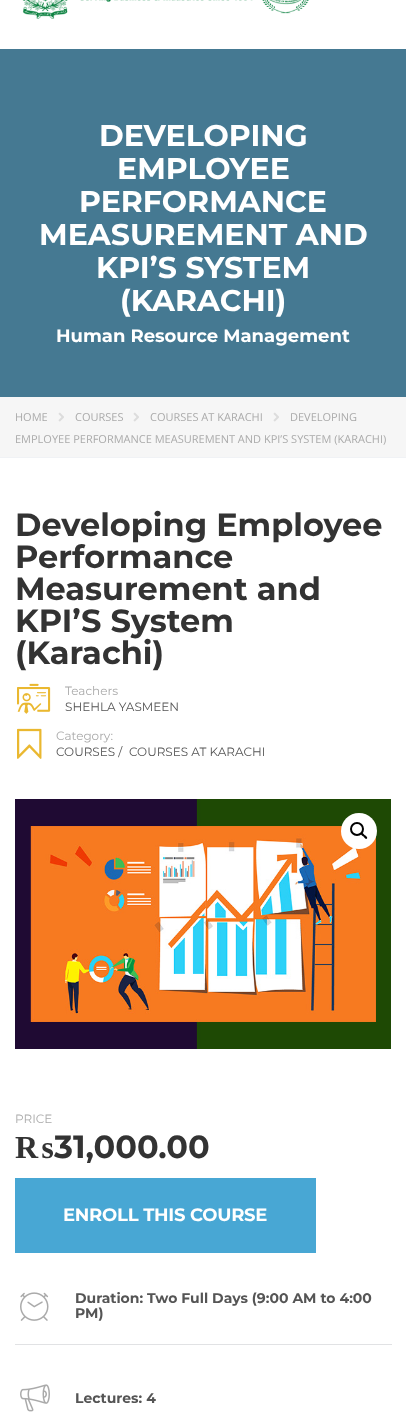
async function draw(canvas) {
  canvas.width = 406;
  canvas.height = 1422;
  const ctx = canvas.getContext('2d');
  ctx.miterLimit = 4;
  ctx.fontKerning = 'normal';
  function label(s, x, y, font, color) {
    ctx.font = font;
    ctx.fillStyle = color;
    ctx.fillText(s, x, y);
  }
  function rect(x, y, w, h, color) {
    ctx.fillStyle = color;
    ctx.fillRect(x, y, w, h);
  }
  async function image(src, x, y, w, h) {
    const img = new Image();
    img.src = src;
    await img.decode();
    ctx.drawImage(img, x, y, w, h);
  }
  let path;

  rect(0, 0, 406, 1422, '#fff');
  await image('assets/img1.png', 22, 0, 287, 19);
  rect(0, 49, 406, 348, '#457992');
  label('DEVELOPING', 99, 146, 'bold 30px Montserrat', '#fff');
  label('EMPLOYEE', 117, 179, 'bold 30px Montserrat', '#fff');
  label('PERFORMANCE', 79, 212, 'bold 30px Montserrat', '#fff');
  label('MEASUREMENT AND', 39, 245, 'bold 30px Montserrat', '#fff');
  label('KPI’S SYSTEM', 96, 278, 'bold 30px Montserrat', '#fff');
  label('(KARACHI)', 120, 311, 'bold 30px Montserrat', '#fff');
  label('Human Resource Management', 56, 342, 'bold 18px Montserrat', '#fff');
  rect(0, 397, 406, 60, '#f6f6f6');
  rect(0, 457, 406, 1, '#f0f2f5');
  label('HOME', 15, 421, '11px Open Sans', '#aaa');
  await image('assets/img2.png', 58, 412, 6, 10);
  label('COURSES', 75, 421, '11px Open Sans', '#aaa');
  await image('assets/img2.png', 133, 412, 6, 10);
  label('COURSES AT KARACHI', 150, 421, '11px Open Sans', '#aaa');
  await image('assets/img2.png', 273, 412, 6, 10);
  label('DEVELOPING', 290, 421, '11px Open Sans', '#aaa');
  label('EMPLOYEE PERFORMANCE MEASUREMENT AND KPI’S SYSTEM (KARACHI)', 15, 443, '11px Open Sans', '#aaa');
  label('Developing Employee', 15, 536, 'bold 32px Montserrat', '#333');
  label('Performance', 15, 568, 'bold 32px Montserrat', '#333');
  label('Measurement and', 15, 600, 'bold 32px Montserrat', '#333');
  label('KPI’S System', 15, 632, 'bold 32px Montserrat', '#333');
  label('(Karachi)', 15, 664, 'bold 32px Montserrat', '#333');
  await image('assets/img3.png', 17, 683, 34, 31);
  label('Teachers', 65, 695, '12px Montserrat', '#aaa');
  label('SHEHLA YASMEEN', 65, 711, '12px Montserrat', '#555');
  await image('assets/img4.png', 17, 728, 25, 31);
  label('Category:', 56, 740, '12px Montserrat', '#aaa');
  label('COURSES /', 56, 756, '12px Montserrat', '#555');
  label('COURSES AT KARACHI', 129, 756, '12px Montserrat', '#555');
  await image('assets/img5.png', 15, 799, 376, 250);
  ctx.fillStyle = '#fff';
  ctx.beginPath();
  ctx.arc(359, 831, 18, 0, 2 * Math.PI);
  ctx.fill();
  ctx.beginPath();
  ctx.arc(357, 829, 6, 0, 2 * Math.PI);
  ctx.strokeStyle = '#000';
  ctx.lineWidth = 2;
  ctx.stroke();
  ctx.fillStyle = '#000';
  path = new Path2D('M361 833C362.5 832 364 834.5 364.5 835C365.5 835.5 368 837.5 367 838.5C365.5 840 364 837 363.5 836.5C362.5 836 360 834 361 833Z');
  ctx.fill(path);
  label('PRICE', 15, 1123, '12px Montserrat', '#aaa');
  label('₨', 15, 1158, 'bold 32px Liberation Serif', '#333');
  label('31,000.00', 54, 1158, 'bold 32px Montserrat', '#333');
  rect(15, 1178, 301, 75, '#48a7d4');
  ctx.letterSpacing = '-0.25px';
  label('ENROLL THIS COURSE', 63, 1221, 'bold 18px Montserrat', '#fff');
  await image('assets/img6.png', 20, 1292, 29, 29);
  rect(15, 1344, 377, 1, '#e1e2e4');
  ctx.letterSpacing = '0px';
  label('Duration: Two Full Days (9:00 AM to 4:00', 75, 1303, 'bold 14px Montserrat', '#555');
  label('PM)', 75, 1318, 'bold 14px Montserrat', '#555');
  await image('assets/img7.png', 20, 1384, 30, 28);
  label('Lectures: 4', 75, 1403, 'bold 14px Montserrat', '#555');
}

draw(document.querySelector('canvas'));
